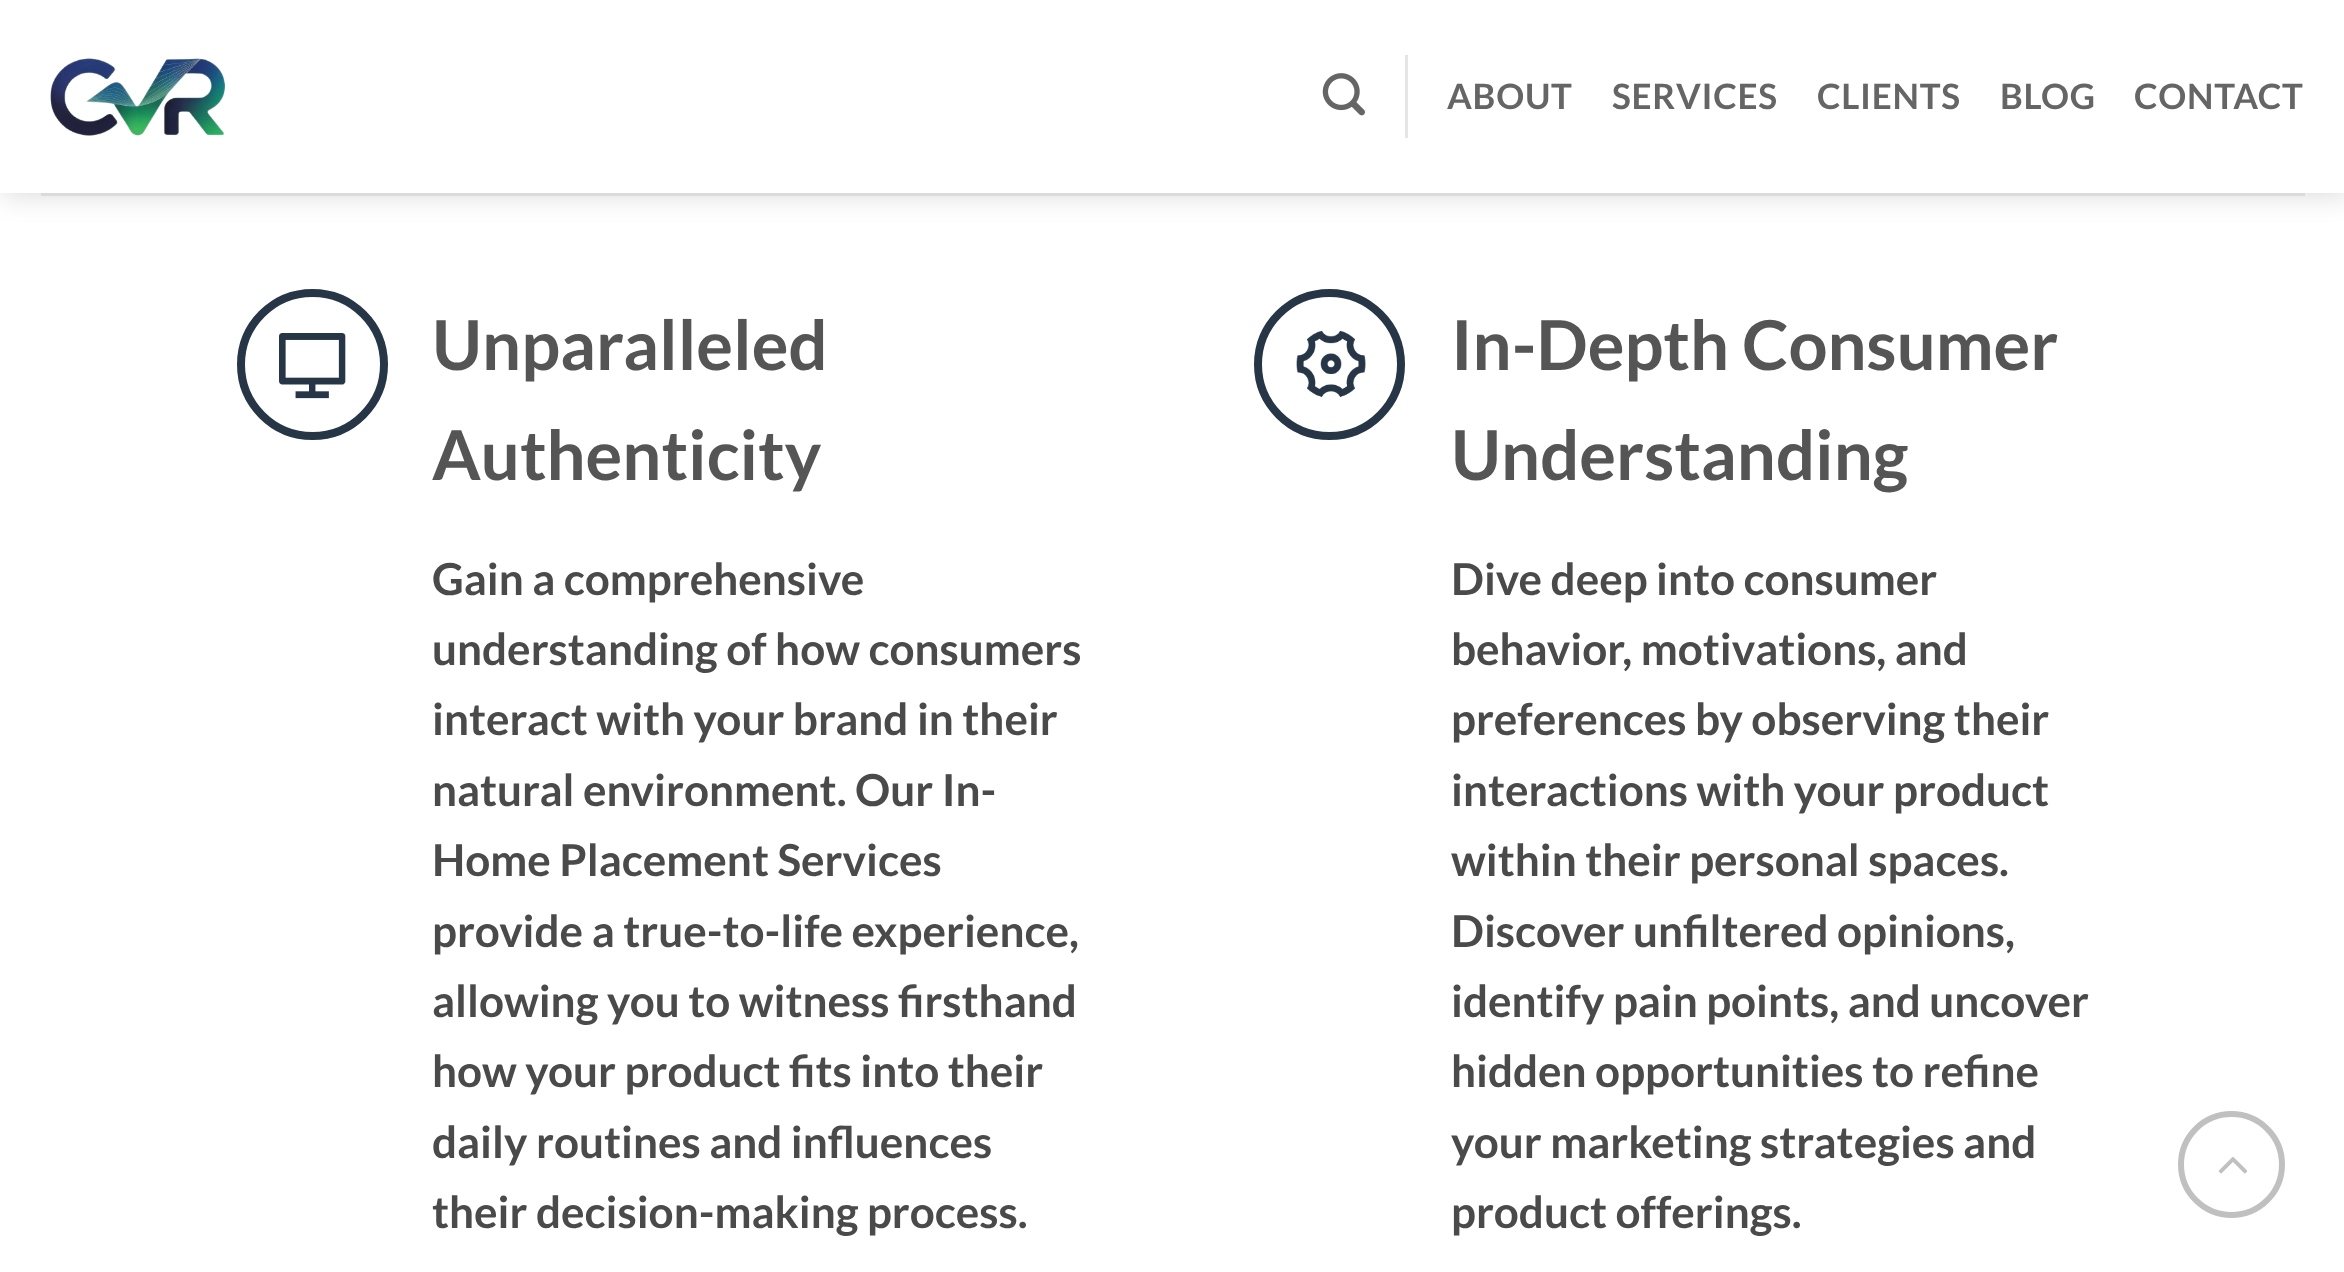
async function draw(canvas) {
  canvas.width = 2344;
  canvas.height = 1272;
  const ctx = canvas.getContext('2d');
  ctx.miterLimit = 4;
  ctx.fontKerning = 'normal';
  function label(s, x, y, font, color) {
    ctx.font = font;
    ctx.fillStyle = color;
    ctx.fillText(s, x, y);
  }
  function rect(x, y, w, h, color) {
    ctx.fillStyle = color;
    ctx.fillRect(x, y, w, h);
  }
  async function image(src, x, y, w, h) {
    const img = new Image();
    img.src = src;
    await img.decode();
    ctx.drawImage(img, x, y, w, h);
  }
  let path;

  rect(0, 0, 2344, 1272, '#fff');
  ctx.save();
  path = new Path2D('M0 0H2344V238H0ZM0 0H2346V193H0Z');
  ctx.clip(path, 'evenodd');
  ctx.fillStyle = '#00000026';
  ctx.filter = 'blur(14px)';
  ctx.beginPath();
  ctx.rect(3, 3, 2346, 192);
  ctx.fill();
  ctx.filter = 'none';
  ctx.restore();
  await image('assets/img1.png', 50, 58, 176, 78);
  await image('assets/img2.png', 1322, 73, 43, 43);
  rect(1405, 55, 3, 83, '#0000001a');
  ctx.letterSpacing = '0.75px';
  label('ABOUT', 1447, 109, 'bold 35px Lato', '#656565');
  label('SERVICES', 1612, 109, 'bold 35px Lato', '#656565');
  label('CLIENTS', 1817, 109, 'bold 35px Lato', '#656565');
  label('BLOG', 2000, 109, 'bold 35px Lato', '#656565');
  label('CONTACT', 2134, 109, 'bold 35px Lato', '#656565');
  rect(41, 193, 2264, 3, '#dbdbdb');
  rect(0, 192, 2344, 1, '#ffffffe6');
  ctx.beginPath();
  ctx.arc(312.5, 364.5, 71.5, 0, 2 * Math.PI);
  ctx.strokeStyle = '#273647';
  ctx.lineWidth = 8;
  ctx.stroke();
  await image('assets/img3.png', 279, 333, 67, 66);
  ctx.letterSpacing = '0px';
  label('Unparalleled', 432, 370, 'bold 68.75px Lato', '#555');
  label('Authenticity', 432, 480, 'bold 68.75px Lato', '#555');
  label('Gain a comprehensive', 432, 595, 'bold 44px Lato', '#4a4a4a');
  label('understanding of how consumers', 432, 665, 'bold 44px Lato', '#4a4a4a');
  label('interact with your brand in their', 432, 735, 'bold 44px Lato', '#4a4a4a');
  label('natural environment. Our In-', 432, 806, 'bold 44px Lato', '#4a4a4a');
  label('Home Placement Services', 432, 876, 'bold 44px Lato', '#4a4a4a');
  label('provide a true-to-life experience,', 432, 947, 'bold 44px Lato', '#4a4a4a');
  label('allowing you to witness firsthand', 432, 1017, 'bold 44px Lato', '#4a4a4a');
  label('how your product fits into their', 432, 1087, 'bold 44px Lato', '#4a4a4a');
  label('daily routines and influences', 432, 1158, 'bold 44px Lato', '#4a4a4a');
  label('their decision-making process.', 432, 1228, 'bold 44px Lato', '#4a4a4a');
  ctx.beginPath();
  ctx.arc(1329.5, 364.5, 71.5, 0, 2 * Math.PI);
  ctx.stroke();
  await image('assets/img4.png', 1296, 330, 70, 68);
  label('In-Depth Consumer', 1451, 370, 'bold 68.75px Lato', '#555');
  label('Understanding', 1451, 480, 'bold 68.75px Lato', '#555');
  label('Dive deep into consumer', 1451, 595, 'bold 44px Lato', '#4a4a4a');
  label('behavior, motivations, and', 1451, 665, 'bold 44px Lato', '#4a4a4a');
  label('preferences by observing their', 1451, 735, 'bold 44px Lato', '#4a4a4a');
  label('interactions with your product', 1451, 806, 'bold 44px Lato', '#4a4a4a');
  label('within their personal spaces.', 1451, 876, 'bold 44px Lato', '#4a4a4a');
  label('Discover unfiltered opinions,', 1451, 947, 'bold 44px Lato', '#4a4a4a');
  label('identify pain points, and uncover', 1451, 1017, 'bold 44px Lato', '#4a4a4a');
  label('hidden opportunities to refine', 1451, 1087, 'bold 44px Lato', '#4a4a4a');
  label('your marketing strategies and', 1451, 1158, 'bold 44px Lato', '#4a4a4a');
  label('product offerings.', 1451, 1228, 'bold 44px Lato', '#4a4a4a');
  ctx.beginPath();
  ctx.arc(2231.5, 1164.5, 50.5, 0, 2 * Math.PI);
  ctx.strokeStyle = '#c0c0c0';
  ctx.lineWidth = 6;
  ctx.stroke();
  await image('assets/img5.png', 2218, 1157, 30, 17);
}

draw(document.querySelector('canvas'));
